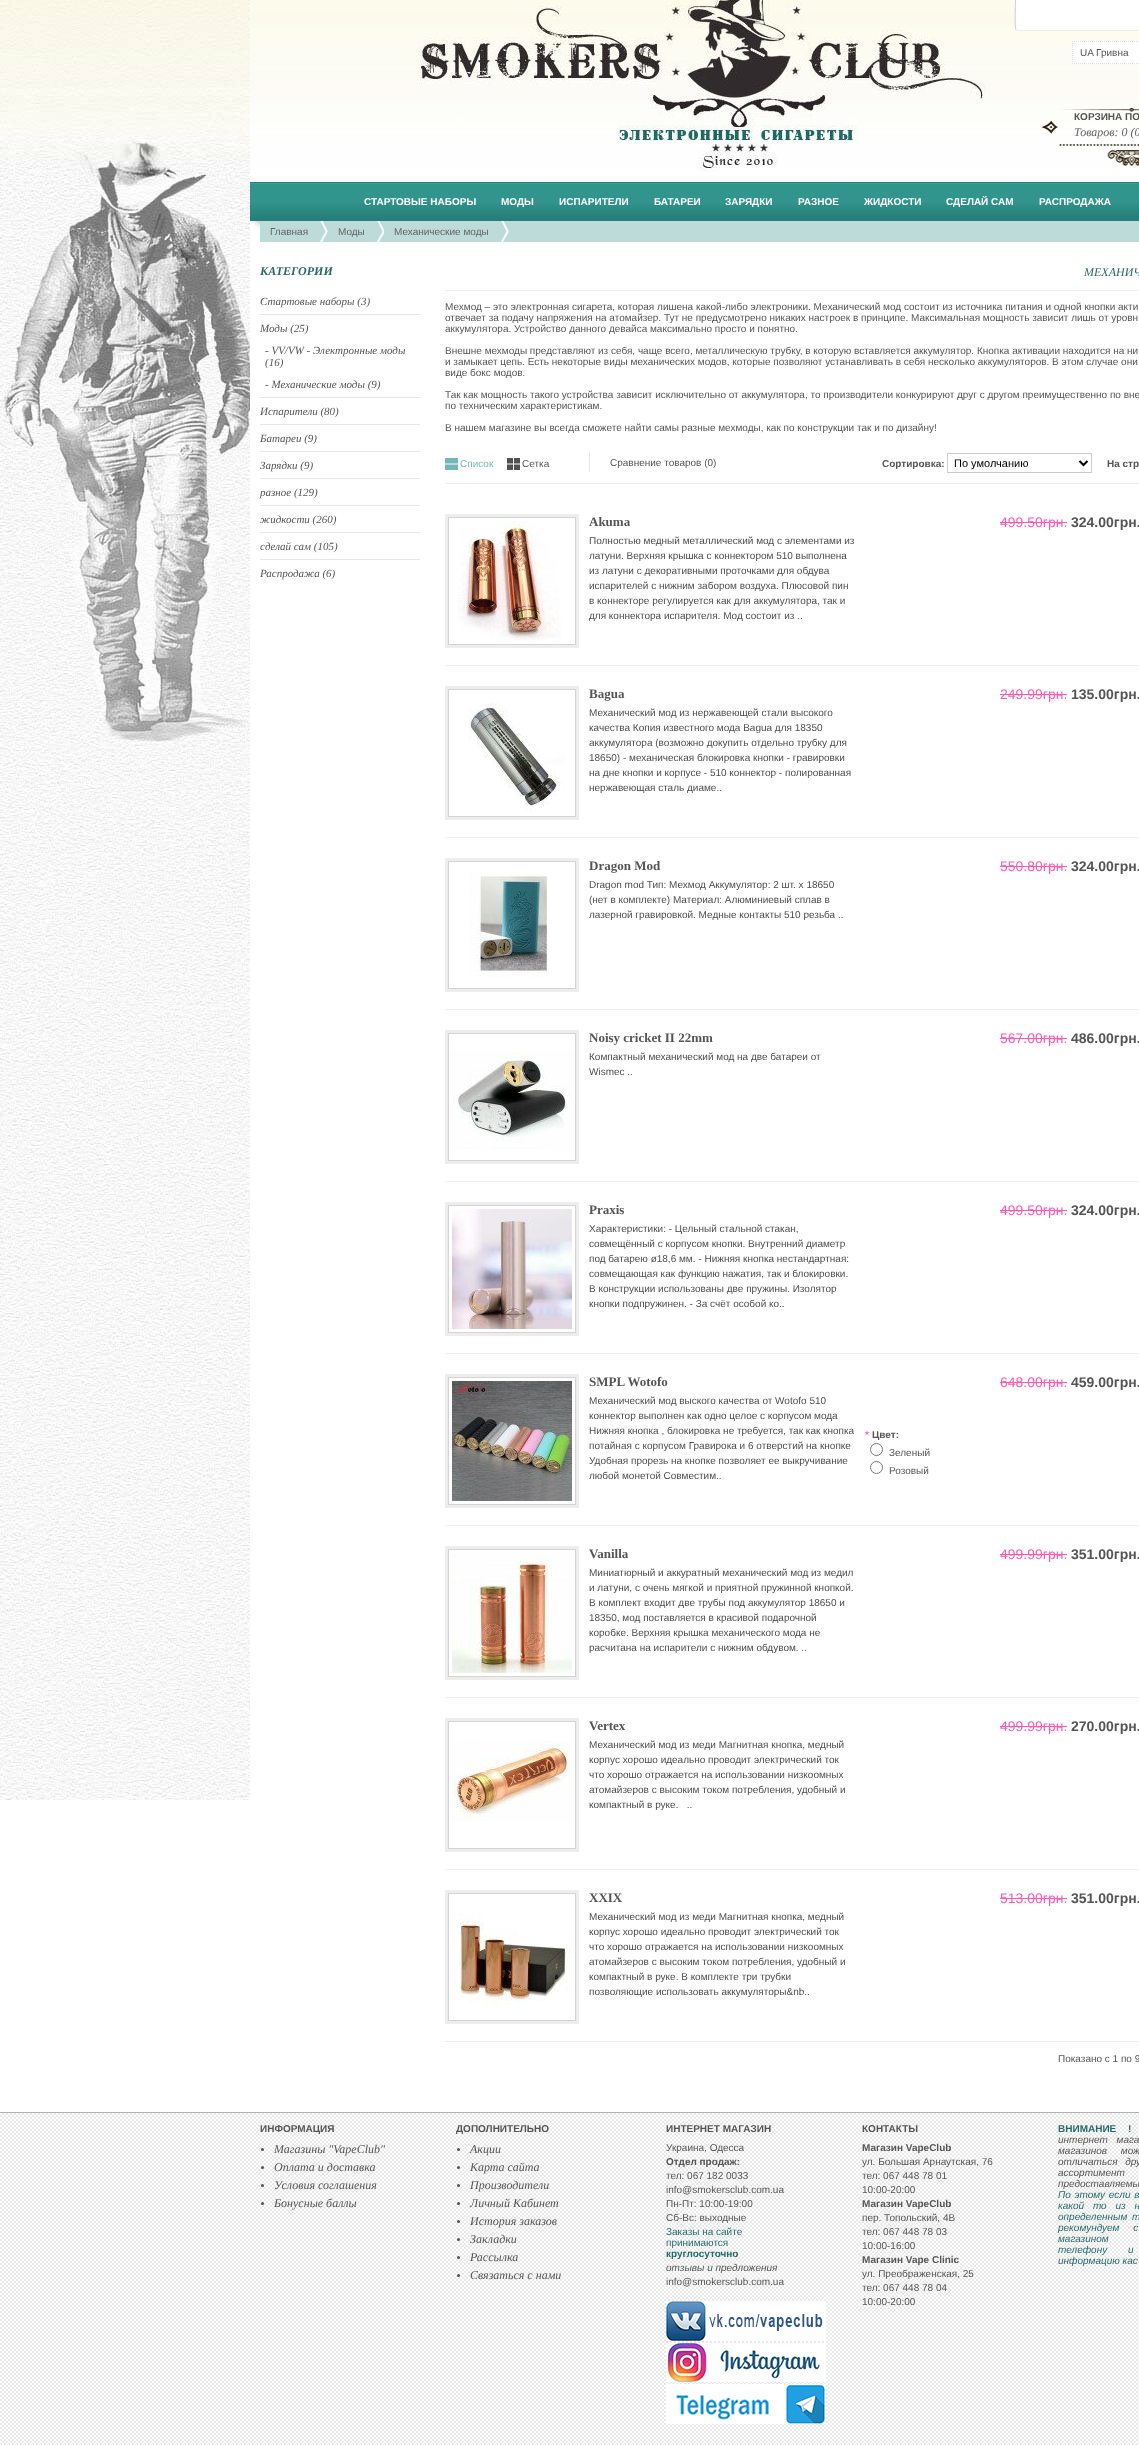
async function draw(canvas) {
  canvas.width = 1139;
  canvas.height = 2445;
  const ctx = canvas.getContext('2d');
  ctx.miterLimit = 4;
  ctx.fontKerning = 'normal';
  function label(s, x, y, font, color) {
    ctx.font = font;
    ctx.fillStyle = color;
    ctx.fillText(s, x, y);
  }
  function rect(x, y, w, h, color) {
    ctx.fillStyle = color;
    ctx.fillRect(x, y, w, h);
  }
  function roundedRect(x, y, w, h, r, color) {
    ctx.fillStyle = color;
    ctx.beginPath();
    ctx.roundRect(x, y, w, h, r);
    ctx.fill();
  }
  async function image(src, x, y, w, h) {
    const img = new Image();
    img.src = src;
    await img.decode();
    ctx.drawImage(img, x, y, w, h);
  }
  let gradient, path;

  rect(0, 0, 1139, 2445, '#fff');
  await image('assets/img1.png', 0, 0, 250, 1800);
  await image('assets/img2.png', 250, 0, 889, 171);
  roundedRect(1015, -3, 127, 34, 3, '#fff');
  path = new Path2D('M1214-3C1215.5-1 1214.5 24 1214.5 28C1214.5 29.5 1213.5 30.5 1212 30.5H1018L1016 30');
  ctx.strokeStyle = '#ededed';
  ctx.stroke(path);
  path = new Path2D('M1016 30C1014.5 28 1015.5 3 1015.5-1C1015.5-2.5 1016.5-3.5 1018-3.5H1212L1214-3');
  ctx.strokeStyle = '#ccc';
  ctx.stroke(path);
  rect(1072, 41, 67, 23, '#fff');
  path = new Path2D('M1072 41.5H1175');
  ctx.strokeStyle = '#e2e2e2';
  ctx.setLineDash([1, 1]);
  ctx.stroke(path);
  path = new Path2D('M1072 63.5H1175');
  ctx.stroke(path);
  path = new Path2D('M1072.5 41V64');
  ctx.stroke(path);
  label('UA Гривна', 1080, 56, '10px Liberation Sans', '#555');
  await image('assets/img3.png', 1041, 107, 98, 59);
  label('КОРЗИНА ПО', 1074, 120, 'bold 10px Liberation Sans', '#555');
  label('Товаров: 0 (0', 1074, 136, 'italic 12px Liberation Serif', '#636363');
  ctx.fillStyle = '#1f6a66';
  ctx.filter = 'blur(5px)';
  ctx.beginPath();
  ctx.rect(258, 198, 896, 23);
  ctx.fill();
  ctx.filter = 'none';
  gradient = ctx.createLinearGradient(740, 183, 740, 220);
  gradient.addColorStop(0.5, '#31948d');
  gradient.addColorStop(1, '#257d76');
  ctx.fillStyle = gradient;
  ctx.fillRect(250, 184, 889, 36);
  ctx.save();
  ctx.beginPath();
  ctx.rect(250, 183, 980, 37);
  ctx.clip();
  ctx.fillStyle = '#32a197';
  path = new Path2D('M151 84H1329V319H151ZM250 184H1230H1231V222L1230 223H250H249V185Z');
  ctx.fill(path, 'evenodd');
  ctx.restore();
  rect(250, 182, 889, 1, '#28807a');
  rect(250, 220, 889, 1, '#28807a');
  label('СТАРТОВЫЕ НАБОРЫ', 364, 205, 'bold 10px Liberation Sans', '#fff');
  label('МОДЫ', 501, 205, 'bold 10px Liberation Sans', '#fff');
  label('ИСПАРИТЕЛИ', 559, 205, 'bold 10px Liberation Sans', '#fff');
  label('БАТАРЕИ', 654, 205, 'bold 10px Liberation Sans', '#fff');
  label('ЗАРЯДКИ', 725, 205, 'bold 10px Liberation Sans', '#fff');
  label('РАЗНОЕ', 798, 205, 'bold 10px Liberation Sans', '#fff');
  label('ЖИДКОСТИ', 864, 205, 'bold 10px Liberation Sans', '#fff');
  label('СДЕЛАЙ САМ', 946, 205, 'bold 10px Liberation Sans', '#fff');
  label('РАСПРОДАЖА', 1039, 205, 'bold 10px Liberation Sans', '#fff');
  rect(260, 221, 879, 21, '#bddbd9');
  label('Главная', 270, 235, '10px Liberation Sans', '#636363');
  await image('assets/img4.png', 320, 221, 8, 21);
  label('Моды', 338, 235, '10px Liberation Sans', '#636363');
  await image('assets/img5.png', 377, 221, 7, 21);
  await image('assets/img6.png', 384, 221, 125, 21);
  label('Механические моды', 394, 235, '10px Liberation Sans', '#636363');
  label('КАТЕГОРИИ', 260, 275, 'italic bold 12px Liberation Serif', '#2b686d');
  label('Стартовые наборы (3)', 260, 305, 'italic 11px Liberation Serif', '#555');
  rect(260, 314, 160, 1, '#e7e7e7');
  label('Моды (25)', 260, 332, 'italic 11px Liberation Serif', '#555');
  label('- VV/VW - Электронные моды', 265, 354, 'italic 11px Liberation Serif', '#555');
  label('(16)', 265, 366, 'italic 11px Liberation Serif', '#555');
  label('- Механические моды (9)', 265, 388, 'italic 11px Liberation Serif', '#555');
  rect(260, 397, 160, 1, '#e7e7e7');
  label('Испарители (80)', 260, 415, 'italic 11px Liberation Serif', '#555');
  rect(260, 424, 160, 1, '#e7e7e7');
  label('Батареи (9)', 260, 442, 'italic 11px Liberation Serif', '#555');
  rect(260, 451, 160, 1, '#e7e7e7');
  label('Зарядки (9)', 260, 469, 'italic 11px Liberation Serif', '#555');
  rect(260, 478, 160, 1, '#e7e7e7');
  label('разное (129)', 260, 496, 'italic 11px Liberation Serif', '#555');
  rect(260, 505, 160, 1, '#e7e7e7');
  label('жидкости (260)', 260, 523, 'italic 11px Liberation Serif', '#555');
  rect(260, 532, 160, 1, '#e7e7e7');
  label('сделай сам (105)', 260, 550, 'italic 11px Liberation Serif', '#555');
  rect(260, 559, 160, 1, '#e7e7e7');
  label('Распродажа (6)', 260, 577, 'italic 11px Liberation Serif', '#555');
  label('МЕХАНИЧ', 1084, 276, 'italic 12px Liberation Serif', '#2b686d');
  rect(445, 290, 694, 1, '#ededed');
  label('Мехмод – это электронная сигарета, которая лишена какой-либо электроники. Механический мод состоит из источника питания и одной кнопки акти', 445, 310, '10px Liberation Sans', '#555');
  label('отвечает за подачу напряжения на атомайзер. Тут не предусмотрено никаких настроек в принципе. Максимальная мощность зависит лишь от уровн', 445, 321, '10px Liberation Sans', '#555');
  label('аккумулятора. Устройство данного девайса максимально просто и понятно.', 445, 332, '10px Liberation Sans', '#555');
  label('Внешне мехмоды представляют из себя, чаще всего, металлическую трубку, в которую вставляется аккумулятор. Кнопка активации находится на ни', 445, 354, '10px Liberation Sans', '#555');
  label('и замыкает цепь. Есть некоторые виды механических модов, которые позволяют устанавливать в себя несколько аккумуляторов. В этом случае они', 445, 365, '10px Liberation Sans', '#555');
  label('виде бокс модов.', 445, 376, '10px Liberation Sans', '#555');
  label('Так как мощность такого устройства зависит исключительно от аккумулятора, то производители конкурируют друг с другом преимущественно по вне', 445, 398, '10px Liberation Sans', '#555');
  label('по техническим характеристикам.', 445, 409, '10px Liberation Sans', '#555');
  label('В нашем магазине вы всегда сможете найти самы разные мехмоды, как по конструкции так и по дизайну!', 445, 431, '10px Liberation Sans', '#555');
  rect(445, 483, 694, 1, '#eee');
  await image('assets/img7.png', 445, 458, 13, 12);
  label('Список', 460, 467, '10px Liberation Sans', '#72b8b8');
  await image('assets/img8.png', 507, 458, 13, 12);
  label('Сетка', 522, 467, '10px Liberation Sans', '#555');
  rect(589, 453, 1, 19, '#e6e6e6');
  label('Сравнение товаров (0)', 610, 466, '10px Liberation Sans', '#555');
  label('Сортировка:', 882, 467, 'bold 10px Liberation Sans', '#555');
  ctx.strokeStyle = '#ccc';
  ctx.setLineDash([]);
  ctx.strokeRect(947.5, 453.5, 144, 19);
  path = new Path2D('M1079.5 461L1083.5 465L1087.5 461');
  ctx.strokeStyle = '#000';
  ctx.lineWidth = 2;
  ctx.stroke(path);
  label('По умолчанию', 954, 467, '11px Liberation Sans', '#000');
  label('На стр', 1107, 467, 'bold 10px Liberation Sans', '#555');
  ctx.strokeStyle = '#ededed';
  ctx.lineWidth = 4;
  ctx.strokeRect(447, 516, 130, 130);
  ctx.strokeStyle = '#d4d4d4';
  ctx.lineWidth = 1;
  ctx.strokeRect(448.5, 517.5, 127, 127);
  await image('assets/img9.png', 457, 521, 104, 120);
  label('Akuma', 589, 526, 'bold 13px Liberation Serif', '#555');
  label('499.50грн.', 1000, 527, '14px Liberation Sans', '#ff5ab0');
  rect(1000, 522, 67, 1, '#ff5ab0');
  label('324.00грн.', 1071, 527, 'bold 14px Liberation Sans', '#555');
  label('Полностью медный металлический мод с элементами из', 589, 544, '10px Liberation Sans', '#4d4d4d');
  label('латуни. Верхняя крышка с коннектором 510 выполнена', 589, 559, '10px Liberation Sans', '#4d4d4d');
  label('из латуни с декоративными проточками для обдува', 589, 574, '10px Liberation Sans', '#4d4d4d');
  label('испарителей с нижним забором воздуха. Плюсовой пин', 589, 589, '10px Liberation Sans', '#4d4d4d');
  label('в коннекторе регулируется как для аккумулятора, так и', 589, 604, '10px Liberation Sans', '#4d4d4d');
  label('для коннектора испарителя. Мод состоит из ..', 589, 619, '10px Liberation Sans', '#4d4d4d');
  rect(445, 665, 694, 1, '#eee');
  ctx.strokeStyle = '#ededed';
  ctx.lineWidth = 4;
  ctx.strokeRect(447, 688, 130, 130);
  ctx.strokeStyle = '#d4d4d4';
  ctx.lineWidth = 1;
  ctx.strokeRect(448.5, 689.5, 127, 127);
  await image('assets/img10.png', 468, 702, 97, 110);
  label('Bagua', 589, 698, 'bold 13px Liberation Serif', '#555');
  label('249.99грн.', 1000, 699, '14px Liberation Sans', '#ff5ab0');
  rect(1000, 694, 67, 1, '#ff5ab0');
  label('135.00грн.', 1071, 699, 'bold 14px Liberation Sans', '#555');
  label('Механический мод из нержавеющей стали высокого', 589, 716, '10px Liberation Sans', '#4d4d4d');
  label('качества Копия известного мода Bagua для 18350', 589, 731, '10px Liberation Sans', '#4d4d4d');
  label('аккумулятора (возможно докупить отдельно трубку для', 589, 746, '10px Liberation Sans', '#4d4d4d');
  label('18650) - механическая блокировка кнопки - гравировки', 589, 761, '10px Liberation Sans', '#4d4d4d');
  label('на дне кнопки и корпусе - 510 коннектор - полированная', 589, 776, '10px Liberation Sans', '#4d4d4d');
  label('нержавеющая сталь диаме..', 589, 791, '10px Liberation Sans', '#4d4d4d');
  rect(445, 837, 694, 1, '#eee');
  ctx.strokeStyle = '#ededed';
  ctx.lineWidth = 4;
  ctx.strokeRect(447, 860, 130, 130);
  ctx.strokeStyle = '#d4d4d4';
  ctx.lineWidth = 1;
  ctx.strokeRect(448.5, 861.5, 127, 127);
  await image('assets/img11.png', 469, 873, 79, 104);
  label('Dragon Mod', 589, 870, 'bold 13px Liberation Serif', '#555');
  label('550.80грн.', 1000, 871, '14px Liberation Sans', '#ff5ab0');
  rect(1000, 866, 67, 1, '#ff5ab0');
  label('324.00грн.', 1071, 871, 'bold 14px Liberation Sans', '#555');
  label('Dragon mod Тип: Мехмод Аккумулятор: 2 шт. х 18650', 589, 888, '10px Liberation Sans', '#4d4d4d');
  label('(нет в комплекте) Материал: Алюминиевый сплав в', 589, 903, '10px Liberation Sans', '#4d4d4d');
  label('лазерной гравировкой. Медные контакты 510 резьба ..', 589, 918, '10px Liberation Sans', '#4d4d4d');
  rect(445, 1009, 694, 1, '#eee');
  ctx.strokeStyle = '#ededed';
  ctx.lineWidth = 4;
  ctx.strokeRect(447, 1032, 130, 130);
  ctx.strokeStyle = '#d4d4d4';
  ctx.lineWidth = 1;
  ctx.strokeRect(448.5, 1033.5, 127, 127);
  await image('assets/img12.png', 452, 1052, 120, 97);
  label('Noisy cricket II 22mm', 589, 1042, 'bold 13px Liberation Serif', '#555');
  label('567.00грн.', 1000, 1043, '14px Liberation Sans', '#ff5ab0');
  rect(1000, 1038, 67, 1, '#ff5ab0');
  label('486.00грн.', 1071, 1043, 'bold 14px Liberation Sans', '#555');
  label('Компактный механический мод на две батареи от', 589, 1060, '10px Liberation Sans', '#4d4d4d');
  label('Wismec ..', 589, 1075, '10px Liberation Sans', '#4d4d4d');
  rect(445, 1181, 694, 1, '#eee');
  ctx.strokeStyle = '#ededed';
  ctx.lineWidth = 4;
  ctx.strokeRect(447, 1204, 130, 130);
  ctx.strokeStyle = '#d4d4d4';
  ctx.lineWidth = 1;
  ctx.strokeRect(448.5, 1205.5, 127, 127);
  await image('assets/img13.png', 452, 1209, 120, 120);
  label('Praxis', 589, 1214, 'bold 13px Liberation Serif', '#555');
  label('499.50грн.', 1000, 1215, '14px Liberation Sans', '#ff5ab0');
  rect(1000, 1210, 67, 1, '#ff5ab0');
  label('324.00грн.', 1071, 1215, 'bold 14px Liberation Sans', '#555');
  label('Характеристики: - Цельный стальной стакан,', 589, 1232, '10px Liberation Sans', '#4d4d4d');
  label('совмещённый с корпусом кнопки. Внутренний диаметр', 589, 1247, '10px Liberation Sans', '#4d4d4d');
  label('под батарею ø18,6 мм. - Нижняя кнопка нестандартная:', 589, 1262, '10px Liberation Sans', '#4d4d4d');
  label('совмещающая как функцию нажатия, так и блокировки.', 589, 1277, '10px Liberation Sans', '#4d4d4d');
  label('В конструкции использованы две пружины. Изолятор', 589, 1292, '10px Liberation Sans', '#4d4d4d');
  label('кнопки подпружинен. - За счёт особой ко..', 589, 1307, '10px Liberation Sans', '#4d4d4d');
  rect(445, 1353, 694, 1, '#eee');
  ctx.strokeStyle = '#ededed';
  ctx.lineWidth = 4;
  ctx.strokeRect(447, 1376, 130, 130);
  ctx.strokeStyle = '#d4d4d4';
  ctx.lineWidth = 1;
  ctx.strokeRect(448.5, 1377.5, 127, 127);
  await image('assets/img14.png', 452, 1381, 120, 120);
  label('SMPL Wotofo', 589, 1386, 'bold 13px Liberation Serif', '#555');
  label('648.00грн.', 1000, 1387, '14px Liberation Sans', '#ff5ab0');
  rect(1000, 1382, 67, 1, '#ff5ab0');
  label('459.00грн.', 1071, 1387, 'bold 14px Liberation Sans', '#555');
  label('Механический мод выского качества от Wotofo 510', 589, 1404, '10px Liberation Sans', '#4d4d4d');
  label('коннектор выполнен как одно целое с корпусом мода', 589, 1419, '10px Liberation Sans', '#4d4d4d');
  label('Нижняя кнопка , блокировка не требуется, так как кнопка', 589, 1434, '10px Liberation Sans', '#4d4d4d');
  label('потайная с корпусом Гравирока и 6 отверстий на кнопке', 589, 1449, '10px Liberation Sans', '#4d4d4d');
  label('Удобная прорезь на кнопке позволяет ее выкручивание', 589, 1464, '10px Liberation Sans', '#4d4d4d');
  label('любой монетой Совместим..', 589, 1479, '10px Liberation Sans', '#4d4d4d');
  label('*', 865, 1438, 'bold 10px Liberation Sans', '#ff5ab0');
  label('Цвет:', 872, 1438, 'bold 10px Liberation Sans', '#555');
  ctx.beginPath();
  ctx.arc(876.5, 1449.5, 6, 0, 2 * Math.PI);
  ctx.strokeStyle = '#767676';
  ctx.stroke();
  label('Зеленый', 889, 1456, '10px Liberation Sans', '#555');
  ctx.beginPath();
  ctx.arc(876.5, 1467.5, 6, 0, 2 * Math.PI);
  ctx.stroke();
  label('Розовый', 889, 1474, '10px Liberation Sans', '#555');
  rect(445, 1525, 694, 1, '#eee');
  ctx.strokeStyle = '#ededed';
  ctx.lineWidth = 4;
  ctx.strokeRect(447, 1548, 130, 130);
  ctx.strokeStyle = '#d4d4d4';
  ctx.lineWidth = 1;
  ctx.strokeRect(448.5, 1549.5, 127, 127);
  await image('assets/img15.png', 452, 1553, 120, 120);
  label('Vanilla', 589, 1558, 'bold 13px Liberation Serif', '#555');
  label('499.99грн.', 1000, 1559, '14px Liberation Sans', '#ff5ab0');
  rect(1000, 1554, 67, 1, '#ff5ab0');
  label('351.00грн.', 1071, 1559, 'bold 14px Liberation Sans', '#555');
  label('Миниатюрный и аккуратный механический мод из медил', 589, 1576, '10px Liberation Sans', '#4d4d4d');
  label('и латуни, с очень мягкой и приятной пружинной кнопкой.', 589, 1591, '10px Liberation Sans', '#4d4d4d');
  label('В комплект входит две трубы под аккумулятор 18650 и', 589, 1606, '10px Liberation Sans', '#4d4d4d');
  label('18350, мод поставляется в красивой подарочной', 589, 1621, '10px Liberation Sans', '#4d4d4d');
  label('коробке. Верхняя крышка механического мода не', 589, 1636, '10px Liberation Sans', '#4d4d4d');
  label('расчитана на испарители с нижним обдувом. ..', 589, 1651, '10px Liberation Sans', '#4d4d4d');
  rect(445, 1697, 694, 1, '#eee');
  ctx.strokeStyle = '#ededed';
  ctx.lineWidth = 4;
  ctx.strokeRect(447, 1720, 130, 130);
  ctx.strokeStyle = '#d4d4d4';
  ctx.lineWidth = 1;
  ctx.strokeRect(448.5, 1721.5, 127, 127);
  await image('assets/img16.png', 452, 1741, 120, 80);
  label('Vertex', 589, 1730, 'bold 13px Liberation Serif', '#555');
  label('499.99грн.', 1000, 1731, '14px Liberation Sans', '#ff5ab0');
  rect(1000, 1726, 67, 1, '#ff5ab0');
  label('270.00грн.', 1071, 1731, 'bold 14px Liberation Sans', '#555');
  label('Механический мод из меди Магнитная кнопка, медный', 589, 1748, '10px Liberation Sans', '#4d4d4d');
  label('корпус хорошо идеально проводит электрический ток', 589, 1763, '10px Liberation Sans', '#4d4d4d');
  label('что хорошо отражается на использовании низкоомных', 589, 1778, '10px Liberation Sans', '#4d4d4d');
  label('атомайзеров с высоким током потребления, удобный и', 589, 1793, '10px Liberation Sans', '#4d4d4d');
  label('компактный в руке.   ..', 589, 1808, '10px Liberation Sans', '#4d4d4d');
  rect(445, 1869, 694, 1, '#eee');
  ctx.strokeStyle = '#ededed';
  ctx.lineWidth = 4;
  ctx.strokeRect(447, 1892, 130, 130);
  ctx.strokeStyle = '#d4d4d4';
  ctx.lineWidth = 1;
  ctx.strokeRect(448.5, 1893.5, 127, 127);
  await image('assets/img17.png', 452, 1913, 120, 96);
  label('XXIX', 589, 1902, 'bold 13px Liberation Serif', '#555');
  label('513.00грн.', 1000, 1903, '14px Liberation Sans', '#ff5ab0');
  rect(1000, 1898, 67, 1, '#ff5ab0');
  label('351.00грн.', 1071, 1903, 'bold 14px Liberation Sans', '#555');
  label('Механический мод из меди Магнитная кнопка, медный', 589, 1920, '10px Liberation Sans', '#4d4d4d');
  label('корпус хорошо идеально проводит электрический ток', 589, 1935, '10px Liberation Sans', '#4d4d4d');
  label('что хорошо отражается на использовании низкоомных', 589, 1950, '10px Liberation Sans', '#4d4d4d');
  label('атомайзеров с высоким током потребления, удобный и', 589, 1965, '10px Liberation Sans', '#4d4d4d');
  label('компактный в руке. В комплекте три трубки', 589, 1980, '10px Liberation Sans', '#4d4d4d');
  label('позволяющие использовать аккумуляторы&nb..', 589, 1995, '10px Liberation Sans', '#4d4d4d');
  rect(445, 2041, 694, 1, '#ededed');
  label('Показано с 1 по 9', 1058, 2062, '10px Liberation Sans', '#555');
  await image('assets/img18.png', 0, 2113, 1139, 332);
  rect(0, 2112, 1139, 1, '#b3b3b3');
  label('ИНФОРМАЦИЯ', 260, 2132, 'bold 10px Liberation Sans', '#555');
  ctx.fillStyle = '#525252';
  ctx.beginPath();
  ctx.arc(262.5, 2149.5, 1.5, 0, 2 * Math.PI);
  ctx.fill();
  label('Магазины "VapeClub"', 274, 2153, 'italic 12px Liberation Serif', '#555');
  ctx.fillStyle = '#525252';
  ctx.beginPath();
  ctx.arc(262.5, 2167.5, 1.5, 0, 2 * Math.PI);
  ctx.fill();
  label('Оплата и доставка', 274, 2171, 'italic 12px Liberation Serif', '#555');
  ctx.fillStyle = '#525252';
  ctx.beginPath();
  ctx.arc(262.5, 2185.5, 1.5, 0, 2 * Math.PI);
  ctx.fill();
  label('Условия соглашения', 274, 2189, 'italic 12px Liberation Serif', '#555');
  ctx.fillStyle = '#525252';
  ctx.beginPath();
  ctx.arc(262.5, 2203.5, 1.5, 0, 2 * Math.PI);
  ctx.fill();
  label('Бонусные баллы', 274, 2207, 'italic 12px Liberation Serif', '#555');
  label('ДОПОЛНИТЕЛЬНО', 456, 2132, 'bold 10px Liberation Sans', '#555');
  ctx.fillStyle = '#525252';
  ctx.beginPath();
  ctx.arc(458.5, 2149.5, 1.5, 0, 2 * Math.PI);
  ctx.fill();
  label('Акции', 470, 2153, 'italic 12px Liberation Serif', '#555');
  ctx.fillStyle = '#525252';
  ctx.beginPath();
  ctx.arc(458.5, 2167.5, 1.5, 0, 2 * Math.PI);
  ctx.fill();
  label('Карта сайта', 470, 2171, 'italic 12px Liberation Serif', '#555');
  ctx.fillStyle = '#525252';
  ctx.beginPath();
  ctx.arc(458.5, 2185.5, 1.5, 0, 2 * Math.PI);
  ctx.fill();
  label('Производители', 470, 2189, 'italic 12px Liberation Serif', '#555');
  ctx.fillStyle = '#525252';
  ctx.beginPath();
  ctx.arc(458.5, 2203.5, 1.5, 0, 2 * Math.PI);
  ctx.fill();
  label('Личный Кабинет', 470, 2207, 'italic 12px Liberation Serif', '#555');
  ctx.fillStyle = '#525252';
  ctx.beginPath();
  ctx.arc(458.5, 2221.5, 1.5, 0, 2 * Math.PI);
  ctx.fill();
  label('История заказов', 470, 2225, 'italic 12px Liberation Serif', '#555');
  ctx.fillStyle = '#525252';
  ctx.beginPath();
  ctx.arc(458.5, 2239.5, 1.5, 0, 2 * Math.PI);
  ctx.fill();
  label('Закладки', 470, 2243, 'italic 12px Liberation Serif', '#555');
  ctx.fillStyle = '#525252';
  ctx.beginPath();
  ctx.arc(458.5, 2257.5, 1.5, 0, 2 * Math.PI);
  ctx.fill();
  label('Рассылка', 470, 2261, 'italic 12px Liberation Serif', '#555');
  ctx.fillStyle = '#525252';
  ctx.beginPath();
  ctx.arc(458.5, 2275.5, 1.5, 0, 2 * Math.PI);
  ctx.fill();
  label('Связаться с нами', 470, 2279, 'italic 12px Liberation Serif', '#555');
  label('ИНТЕРНЕТ МАГАЗИН', 666, 2132, 'bold 10px Liberation Sans', '#555');
  label('Украина, Одесса', 666, 2151, '10px Liberation Sans', '#555');
  label('Отдел продаж:', 666, 2165, 'bold 10px Liberation Sans', '#555');
  label('тел: 067 182 0033', 666, 2179, '10px Liberation Sans', '#555');
  label('info@smokersclub.com.ua', 666, 2193, '10px Liberation Sans', '#555');
  label('Пн-Пт: 10:00-19:00', 666, 2207, '10px Liberation Sans', '#555');
  label('Сб-Вс: выходные', 666, 2221, '10px Liberation Sans', '#555');
  label('Заказы на сайте', 666, 2235, '10px Liberation Sans', '#256b6b');
  label('принимаются', 666, 2246, '10px Liberation Sans', '#256b6b');
  label('круглосуточно', 666, 2257, 'bold 10px Liberation Sans', '#256b6b');
  label('отзывы и предложения', 666, 2271, 'italic 10px Liberation Sans', '#555');
  label('info@smokersclub.com.ua', 666, 2285, '10px Liberation Sans', '#555');
  await image('assets/img19.png', 666, 2301, 160, 40);
  await image('assets/img20.png', 666, 2343, 160, 39);
  await image('assets/img21.png', 666, 2384, 160, 40);
  label('КОНТАКТЫ', 862, 2132, 'bold 10px Liberation Sans', '#555');
  label('Магазин VapeClub', 862, 2151, 'bold 10px Liberation Sans', '#555');
  label('ул. Большая Арнаутская, 76', 862, 2165, '10px Liberation Sans', '#555');
  label('тел: 067 448 78 01', 862, 2179, '10px Liberation Sans', '#555');
  label('10:00-20:00', 862, 2193, '10px Liberation Sans', '#555');
  label('Магазин VapeClub', 862, 2207, 'bold 10px Liberation Sans', '#555');
  label('пер. Топольский, 4B', 862, 2221, '10px Liberation Sans', '#555');
  label('тел: 067 448 78 03', 862, 2235, '10px Liberation Sans', '#555');
  label('10:00-16:00', 862, 2249, '10px Liberation Sans', '#555');
  label('Магазин Vape Clinic', 862, 2263, 'bold 10px Liberation Sans', '#555');
  label('ул. Преображенская, 25', 862, 2277, '10px Liberation Sans', '#555');
  label('тел: 067 448 78 04', 862, 2291, '10px Liberation Sans', '#555');
  label('10:00-20:00', 862, 2305, '10px Liberation Sans', '#555');
  ctx.wordSpacing = '9px';
  label('ВНИМАНИЕ !', 1058, 2132, 'bold 10px Liberation Sans', '#256b6b');
  ctx.wordSpacing = '6px';
  label('интернет мага', 1058, 2143, 'italic 10px Liberation Sans', '#555');
  ctx.wordSpacing = '11px';
  label('магазинов мож', 1058, 2154, 'italic 10px Liberation Sans', '#555');
  ctx.wordSpacing = '5px';
  label('отличаться дру', 1058, 2165, 'italic 10px Liberation Sans', '#555');
  ctx.wordSpacing = '26px';
  label('ассортимент', 1058, 2176, 'italic 10px Liberation Sans', '#555');
  ctx.wordSpacing = '0px';
  label('предоставляемы', 1058, 2187, 'italic 10px Liberation Sans', '#555');
  ctx.wordSpacing = '1px';
  label('По этому если в', 1058, 2198, 'italic 10px Liberation Sans', '#256b6b');
  ctx.wordSpacing = '6px';
  label('какой то из н', 1058, 2209, 'italic 10px Liberation Sans', '#256b6b');
  ctx.wordSpacing = '2px';
  label('определенным т', 1058, 2220, 'italic 10px Liberation Sans', '#256b6b');
  ctx.wordSpacing = '11px';
  label('рекомундуем с', 1058, 2231, 'italic 10px Liberation Sans', '#256b6b');
  ctx.wordSpacing = '25px';
  label('магазином', 1058, 2242, 'italic 10px Liberation Sans', '#256b6b');
  ctx.wordSpacing = '18px';
  label('телефону и', 1058, 2253, 'italic 10px Liberation Sans', '#256b6b');
  ctx.wordSpacing = '0px';
  label('информацию кас', 1058, 2264, 'italic 10px Liberation Sans', '#256b6b');
}

draw(document.querySelector('canvas'));
